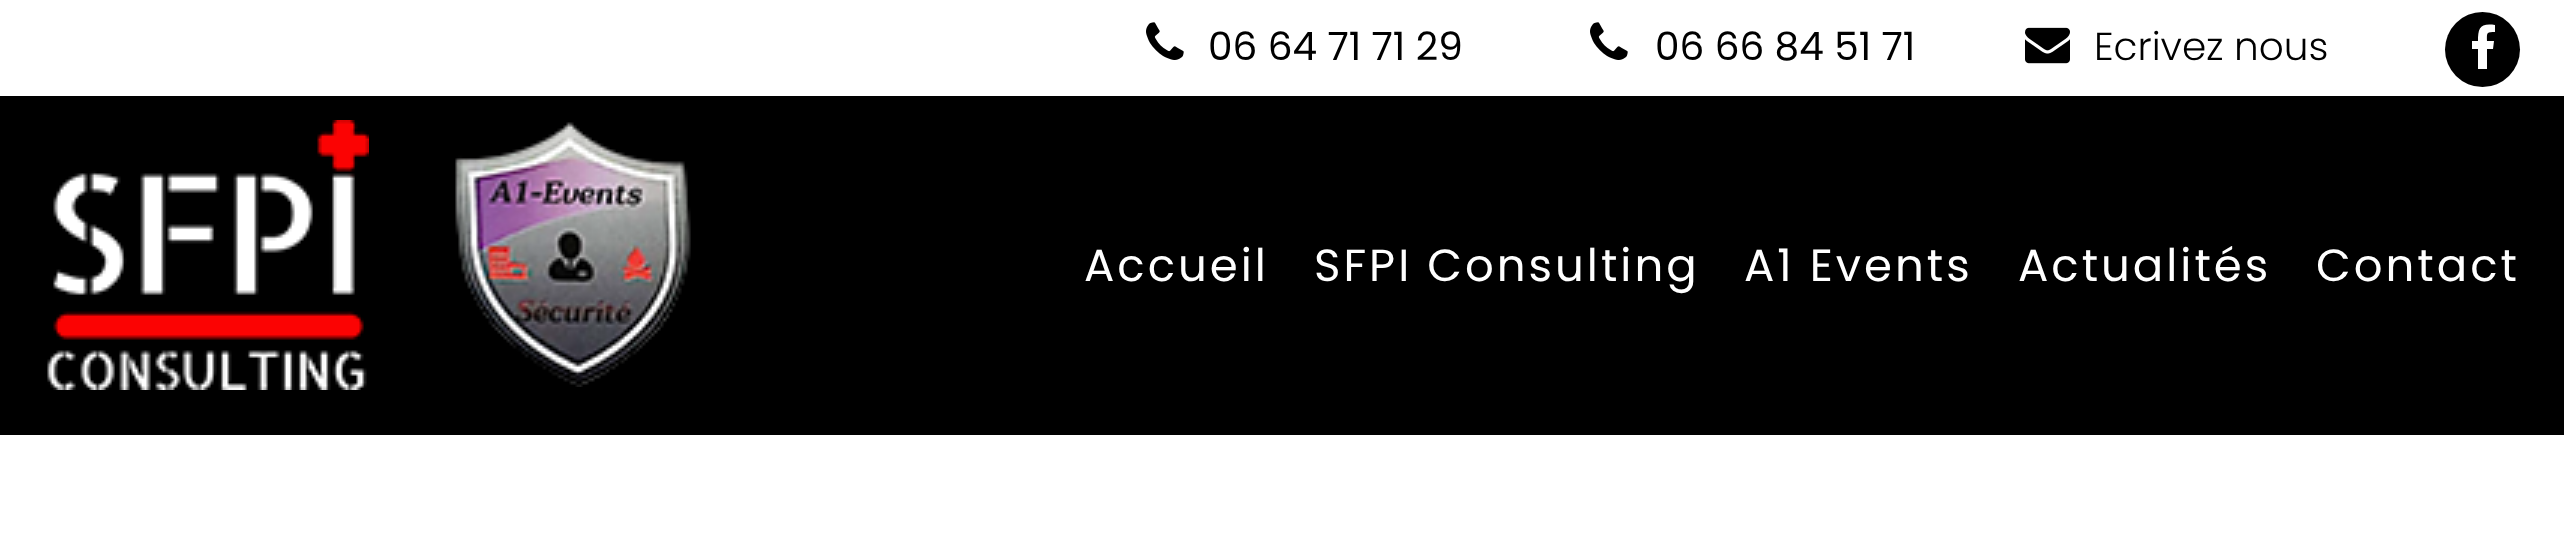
async function draw(canvas) {
  canvas.width = 2564;
  canvas.height = 551;
  const ctx = canvas.getContext('2d');
  ctx.miterLimit = 4;
  ctx.fontKerning = 'normal';
  function label(s, x, y, font, color) {
    ctx.font = font;
    ctx.fillStyle = color;
    ctx.fillText(s, x, y);
  }
  function rect(x, y, w, h, color) {
    ctx.fillStyle = color;
    ctx.fillRect(x, y, w, h);
  }
  async function image(src, x, y, w, h) {
    const img = new Image();
    img.src = src;
    await img.decode();
    ctx.drawImage(img, x, y, w, h);
  }
  let path;

  rect(0, 0, 2564, 551, '#fff');
  await image('assets/img1.png', 1146, 22, 38, 38);
  label('06 64 71 71 29', 1208, 60, '39px Poppins', '#000');
  await image('assets/img1.png', 1590, 22, 38, 38);
  label('06 66 84 51 71', 1655, 60, '39px Poppins', '#000');
  await image('assets/img2.png', 2025, 27, 45, 37);
  label('Ecrivez nous', 2094, 60, '300 39px Poppins', '#000');
  ctx.beginPath();
  ctx.arc(2482.5, 49.5, 37.5, 0, 2 * Math.PI);
  ctx.fill();
  ctx.fillStyle = '#fff';
  path = new Path2D('M2495 25V32C2486 32 2487 33 2487 41H2494L2493 49H2487V69H2478V49H2472V41H2478C2478 28 2480 23 2495 25Z');
  ctx.fill(path);
  rect(0, 96, 2564, 339, '#000');
  await image('assets/img3.png', 47, 120, 322, 270);
  await image('assets/img4.png', 455, 122, 236, 265);
  ctx.letterSpacing = '3px';
  label('Accueil', 1084, 281, '45px Poppins', '#fff');
  label('SFPI Consulting', 1314, 281, '45px Poppins', '#fff');
  label('A1 Events', 1744, 281, '45px Poppins', '#fff');
  label('Actualités', 2018, 281, '45px Poppins', '#fff');
  label('Contact', 2316, 281, '45px Poppins', '#fff');
}

draw(document.querySelector('canvas'));
